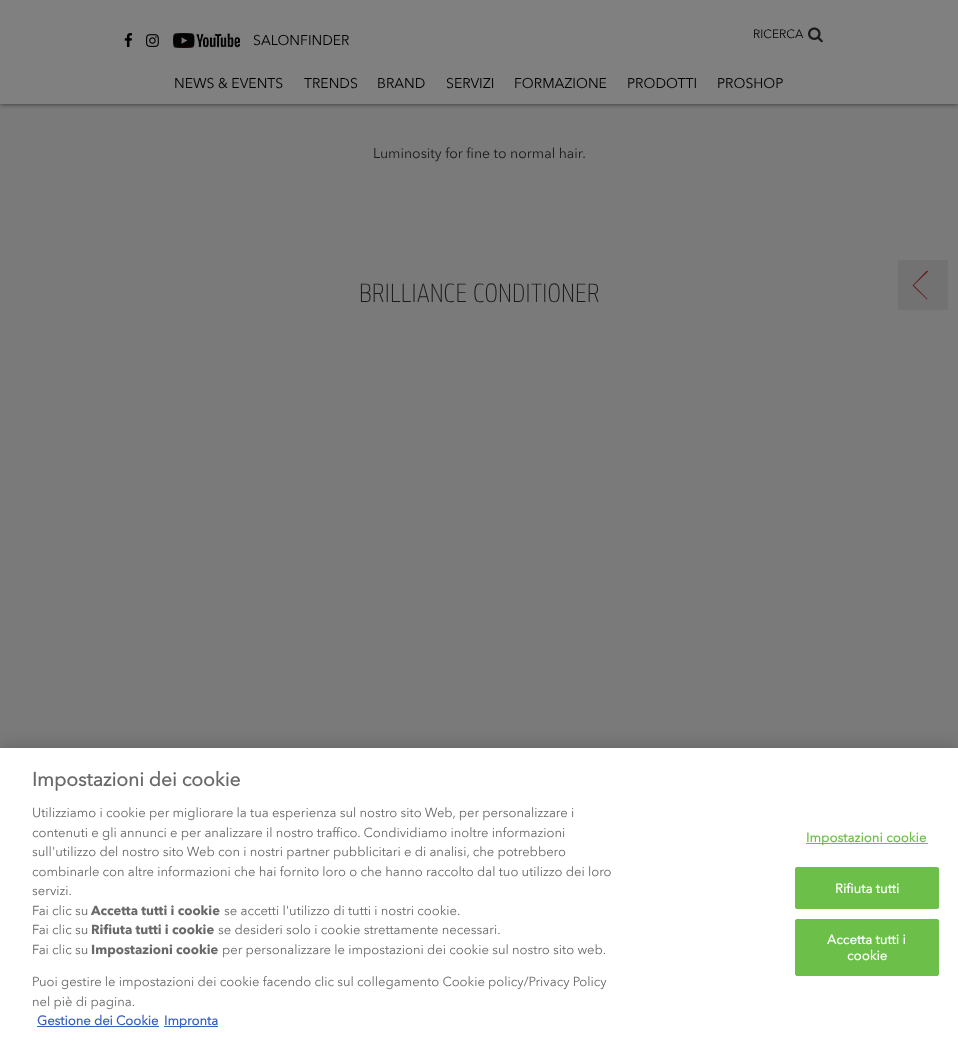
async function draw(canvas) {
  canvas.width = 958;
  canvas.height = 1041;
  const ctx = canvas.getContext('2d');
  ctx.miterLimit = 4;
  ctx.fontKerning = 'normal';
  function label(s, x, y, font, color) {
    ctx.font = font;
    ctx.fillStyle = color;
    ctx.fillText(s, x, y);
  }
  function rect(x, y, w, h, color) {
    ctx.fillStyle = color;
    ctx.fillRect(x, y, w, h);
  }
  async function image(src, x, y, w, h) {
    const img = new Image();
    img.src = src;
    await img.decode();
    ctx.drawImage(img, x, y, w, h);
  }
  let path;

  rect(0, 0, 958, 1041, '#7a7a7a');
  ctx.fillStyle = '#2b2b2b';
  ctx.filter = 'blur(2.5px)';
  ctx.beginPath();
  ctx.rect(0, 0, 958, 104);
  ctx.fill();
  ctx.filter = 'none';
  rect(0, 0, 958, 104, '#808080');
  label('RICERCA', 753, 38, '12px Avenir', '#000');
  await image('assets/img1.png', 808, 27, 15, 16);
  await image('assets/img2.png', 124, 33, 9, 14);
  await image('assets/img3.png', 146, 34, 13, 13);
  await image('assets/img4.png', 173, 33, 67, 15);
  label('SALONFINDER', 253, 45, '14px Avenir', '#000');
  label('NEWS & EVENTS', 174, 88, '14px Avenir', '#000');
  label('TRENDS', 304, 88, '14px Avenir', '#000');
  label('BRAND', 377, 88, '14px Avenir', '#000');
  label('SERVIZI', 446, 88, '14px Avenir', '#000');
  label('FORMAZIONE', 514, 88, '14px Avenir', '#000');
  label('PRODOTTI', 627, 88, '14px Avenir', '#000');
  label('PROSHOP', 717, 88, '14px Avenir', '#000');
  label('Luminosity for fine to normal hair.', 373, 158, '14px Avenir', '#1a1a1a');
  label('BRILLIANCE CONDITIONER', 359, 302, '100 28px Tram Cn', '#1a1a1a');
  rect(898, 260, 50, 50, '#727272');
  ctx.fillStyle = '#661718';
  path = new Path2D('M913.5 285L927.5 299L927 299.5L912.5 285.5Z');
  ctx.fill(path);
  path = new Path2D('M913 285L927 270.5L928 271.5L913.5 285.5Z');
  ctx.fill(path);
  ctx.fillStyle = '#00000033';
  ctx.filter = 'blur(9px)';
  ctx.beginPath();
  ctx.rect(0, 748, 958, 293);
  ctx.fill();
  ctx.filter = 'none';
  rect(0, 748, 958, 293, '#fff');
  label('Impostazioni dei cookie', 32, 786, 'bold 19.25px Avenir', '#696969');
  label('Utilizziamo i cookie per migliorare la tua esperienza sul nostro sito Web, per personalizzare i', 32, 817, '13px Avenir', '#696969');
  label('contenuti e gli annunci e per analizzare il nostro traffico. Condividiamo inoltre informazioni', 32, 837, '13px Avenir', '#696969');
  label('sull\'utilizzo del nostro sito Web con i nostri partner pubblicitari e di analisi, che potrebbero', 32, 856, '13px Avenir', '#696969');
  label('combinarle con altre informazioni che hai fornito loro o che hanno raccolto dal tuo utilizzo dei loro', 32, 876, '13px Avenir', '#696969');
  label('servizi.', 32, 895, '13px Avenir', '#696969');
  label('Fai clic su', 32, 915, '13px Avenir', '#696969');
  label('Accetta tutti i cookie', 91, 915, 'bold 13px "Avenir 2"', '#696969');
  label('se accetti l\'utilizzo di tutti i nostri cookie.', 224, 915, '13px Avenir', '#696969');
  label('Fai clic su', 32, 934, '13px Avenir', '#696969');
  label('Rifiuta tutti i cookie', 91, 934, 'bold 13px "Avenir 2"', '#696969');
  label('se desideri solo i cookie strettamente necessari.', 218, 934, '13px Avenir', '#696969');
  label('Fai clic su', 32, 954, '13px Avenir', '#696969');
  label('Impostazioni cookie', 91, 954, 'bold 13px "Avenir 2"', '#696969');
  label('per personalizzare le impostazioni dei cookie sul nostro sito web.', 222, 954, '13px Avenir', '#696969');
  label('Puoi gestire le impostazioni dei cookie facendo clic sul collegamento Cookie policy/Privacy Policy', 32, 986, '13px Avenir', '#696969');
  label('nel piè di pagina.', 32, 1006, '13px Avenir', '#696969');
  label('Gestione dei Cookie', 37, 1025, 'bold 13px Avenir', '#3860be');
  rect(37, 1026, 122, 1, '#3860be');
  rect(164, 1026, 54, 1, '#3860be');
  label('Impronta', 164, 1025, 'bold 13px Avenir', '#3860be');
  rect(806, 843, 122, 1, '#6cc04a');
  ctx.letterSpacing = '0.1px';
  label('Impostazioni cookie', 806, 842, 'bold 13px Avenir', '#6cc04a');
  ctx.beginPath();
  ctx.roundRect(795.5, 867.5, 143, 41, 1.5);
  ctx.fill();
  ctx.strokeStyle = '#6cc04a';
  ctx.stroke();
  label('Rifiuta tutti', 835, 893, 'bold 13px Avenir', '#fff');
  ctx.fillStyle = '#6cc04a';
  ctx.beginPath();
  ctx.roundRect(795.5, 919.5, 143, 56, 1.5);
  ctx.fill();
  ctx.stroke();
  label('Accetta tutti i', 827, 944, 'bold 13px Avenir', '#fff');
  label('cookie', 847, 960, 'bold 13px Avenir', '#fff');
}

draw(document.querySelector('canvas'));
